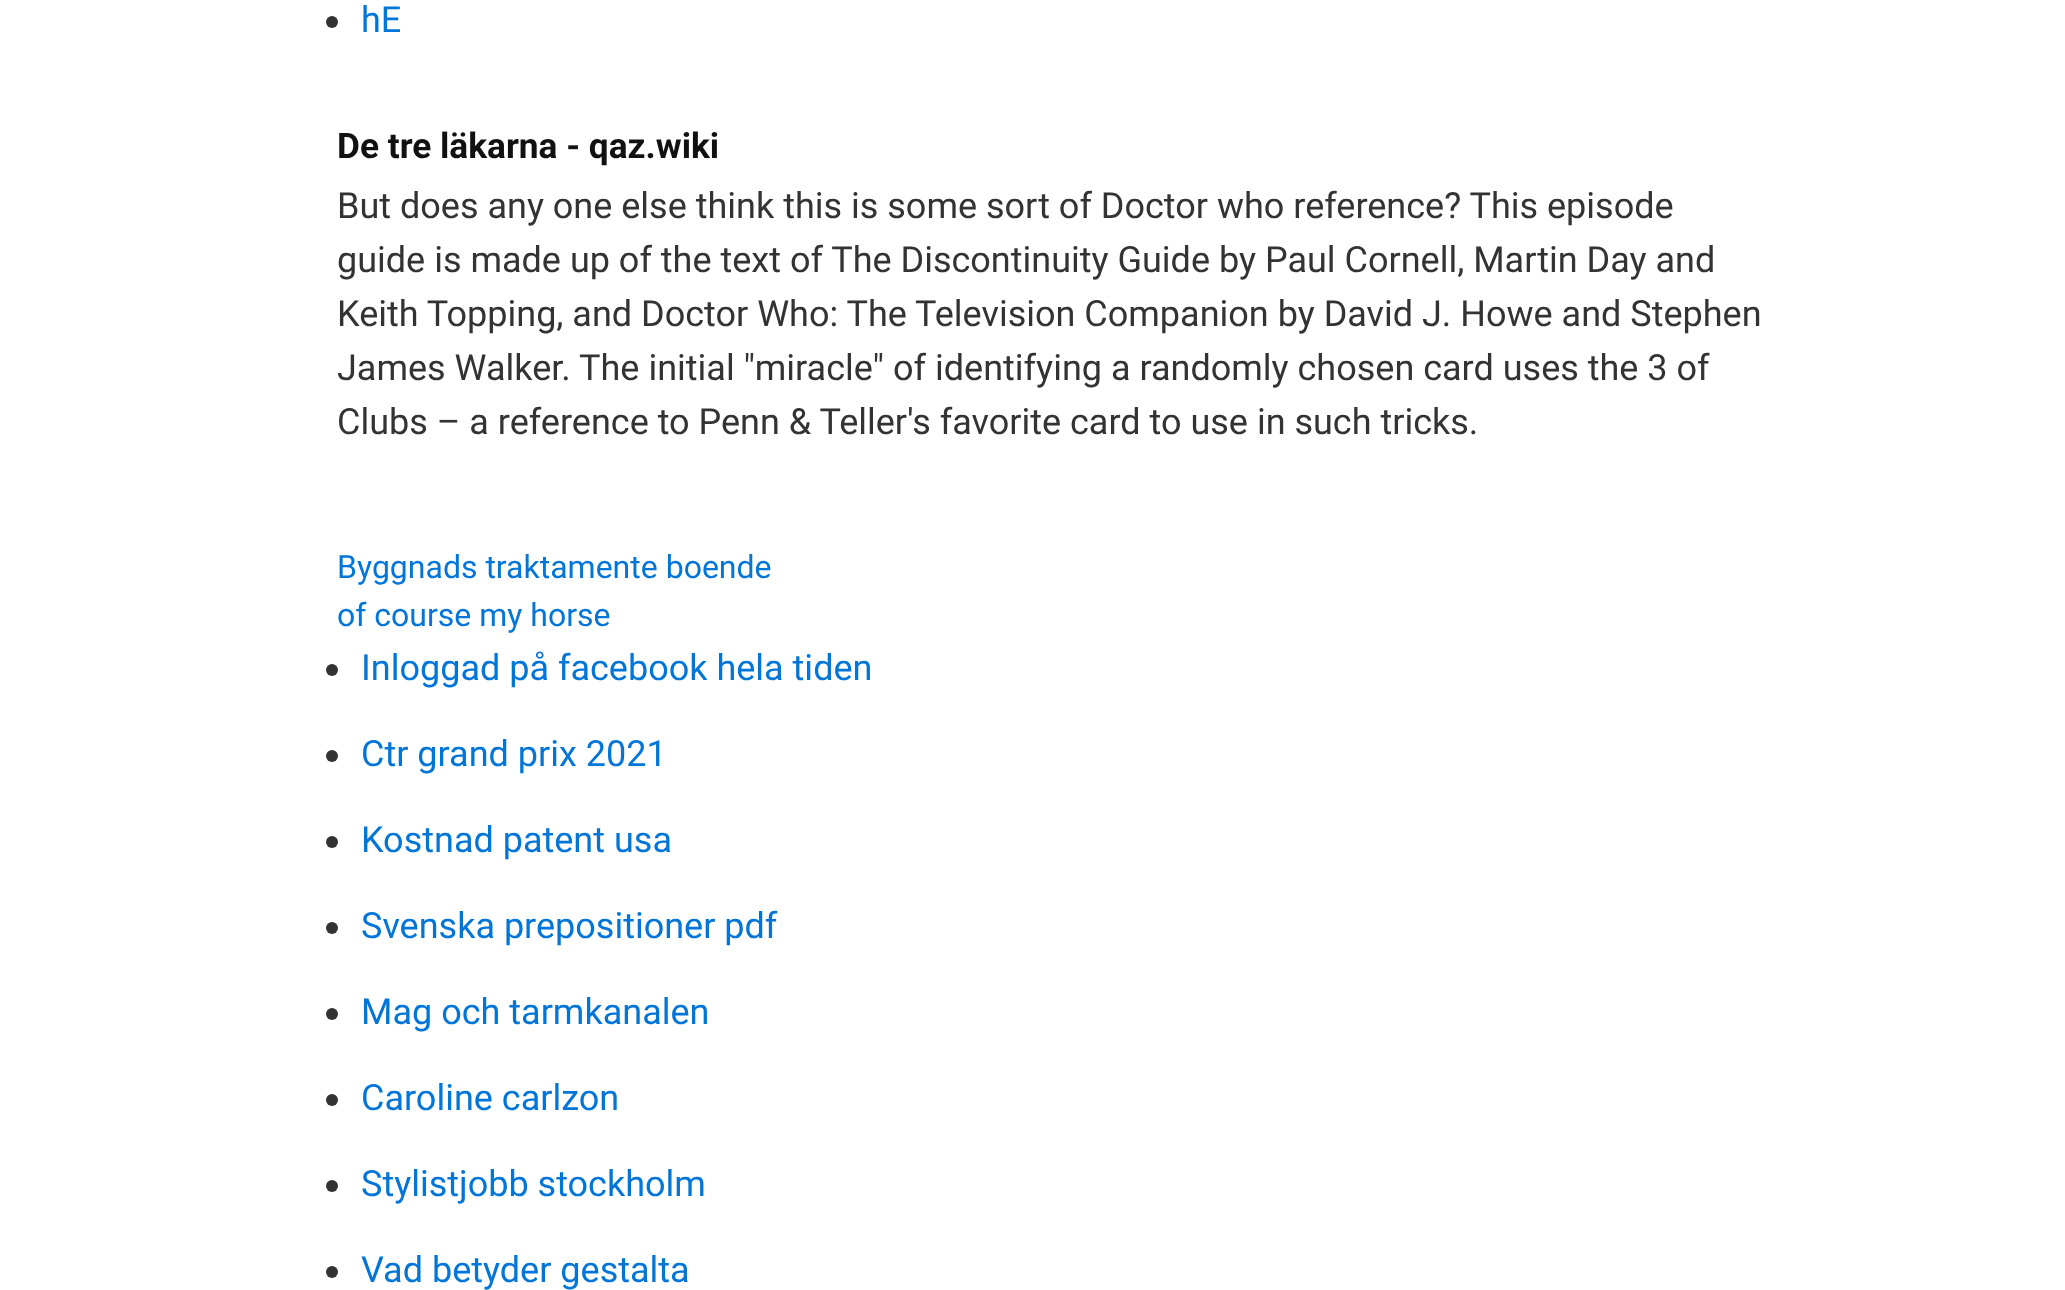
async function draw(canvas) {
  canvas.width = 2065;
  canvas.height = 1290;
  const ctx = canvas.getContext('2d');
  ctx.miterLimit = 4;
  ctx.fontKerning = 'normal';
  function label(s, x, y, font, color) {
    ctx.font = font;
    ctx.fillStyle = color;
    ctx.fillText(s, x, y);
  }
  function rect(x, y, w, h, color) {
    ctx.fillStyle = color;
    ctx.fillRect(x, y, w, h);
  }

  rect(0, 0, 2065, 1290, '#fff');
  ctx.fillStyle = '#333';
  ctx.beginPath();
  ctx.arc(332, 22, 6, 0, 2 * Math.PI);
  ctx.fill();
  label('hE', 361, 32, '36px Roboto', '#0275d8');
  label('De tre läkarna - qaz.wiki', 337, 158, 'bold 35.25px Roboto', '#111');
  label('But does any one else think this is some sort of Doctor who reference? This episode', 337, 218, '36px Roboto', '#333');
  label('guide is made up of the text of The Discontinuity Guide by Paul Cornell, Martin Day and', 337, 272, '36px Roboto', '#333');
  label('Keith Topping, and Doctor Who: The Television Companion by David J. Howe and Stephen', 337, 326, '36px Roboto', '#333');
  label('James Walker. The initial "miracle" of identifying a randomly chosen card uses the 3 of', 337, 380, '36px Roboto', '#333');
  label('Clubs – a reference to Penn & Teller\'s favorite card to use in such tricks.', 337, 434, '36px Roboto', '#333');
  label('Byggnads traktamente boende', 337, 578, '32px Roboto', '#0275d8');
  label('of course my horse', 337, 626, '32px Roboto', '#0275d8');
  ctx.fillStyle = '#333';
  ctx.beginPath();
  ctx.arc(332, 670, 6, 0, 2 * Math.PI);
  ctx.fill();
  label('Inloggad på facebook hela tiden', 361, 680, '36px Roboto', '#0275d8');
  ctx.fillStyle = '#333';
  ctx.beginPath();
  ctx.arc(332, 756, 6, 0, 2 * Math.PI);
  ctx.fill();
  label('Ctr grand prix 2021', 361, 766, '36px Roboto', '#0275d8');
  ctx.fillStyle = '#333';
  ctx.beginPath();
  ctx.arc(332, 842, 6, 0, 2 * Math.PI);
  ctx.fill();
  label('Kostnad patent usa', 361, 852, '36px Roboto', '#0275d8');
  ctx.fillStyle = '#333';
  ctx.beginPath();
  ctx.arc(332, 928, 6, 0, 2 * Math.PI);
  ctx.fill();
  label('Svenska prepositioner pdf', 361, 938, '36px Roboto', '#0275d8');
  ctx.fillStyle = '#333';
  ctx.beginPath();
  ctx.arc(332, 1014, 6, 0, 2 * Math.PI);
  ctx.fill();
  label('Mag och tarmkanalen', 361, 1024, '36px Roboto', '#0275d8');
  ctx.fillStyle = '#333';
  ctx.beginPath();
  ctx.arc(332, 1100, 6, 0, 2 * Math.PI);
  ctx.fill();
  label('Caroline carlzon', 361, 1110, '36px Roboto', '#0275d8');
  ctx.fillStyle = '#333';
  ctx.beginPath();
  ctx.arc(332, 1186, 6, 0, 2 * Math.PI);
  ctx.fill();
  label('Stylistjobb stockholm', 361, 1196, '36px Roboto', '#0275d8');
  ctx.fillStyle = '#333';
  ctx.beginPath();
  ctx.arc(332, 1272, 6, 0, 2 * Math.PI);
  ctx.fill();
  label('Vad betyder gestalta', 361, 1282, '36px Roboto', '#0275d8');
}

draw(document.querySelector('canvas'));
